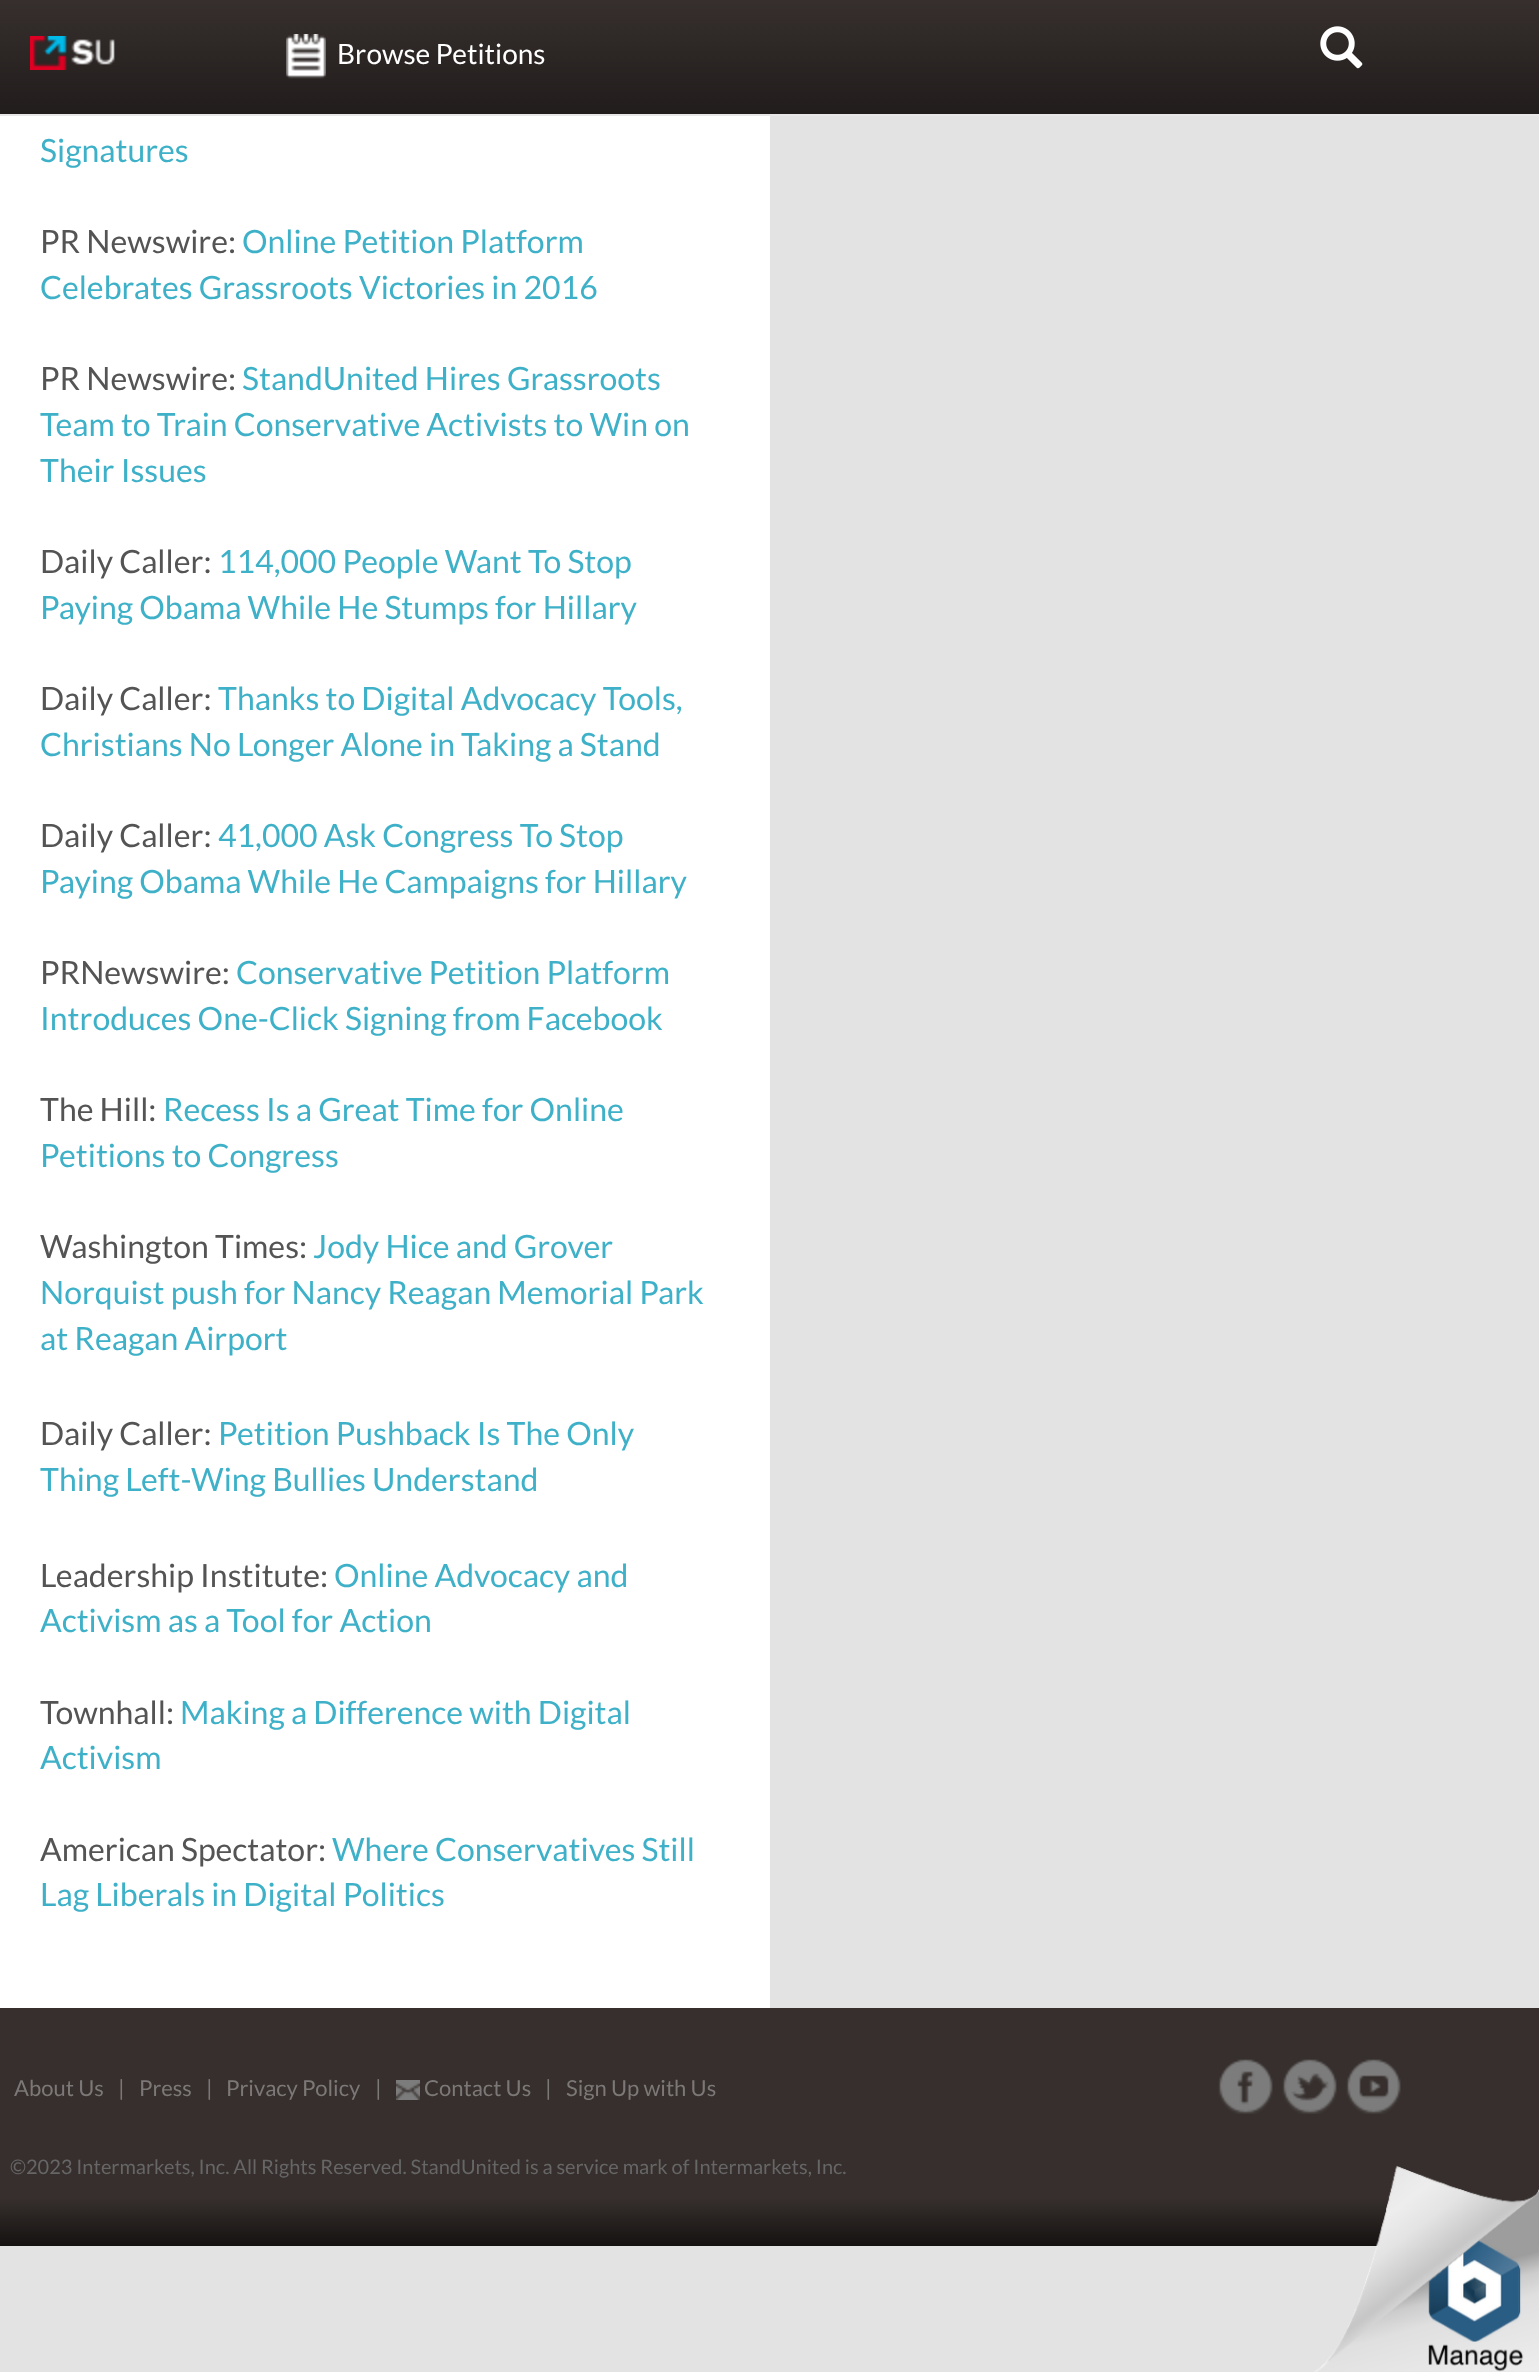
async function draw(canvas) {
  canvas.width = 1539;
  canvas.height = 2372;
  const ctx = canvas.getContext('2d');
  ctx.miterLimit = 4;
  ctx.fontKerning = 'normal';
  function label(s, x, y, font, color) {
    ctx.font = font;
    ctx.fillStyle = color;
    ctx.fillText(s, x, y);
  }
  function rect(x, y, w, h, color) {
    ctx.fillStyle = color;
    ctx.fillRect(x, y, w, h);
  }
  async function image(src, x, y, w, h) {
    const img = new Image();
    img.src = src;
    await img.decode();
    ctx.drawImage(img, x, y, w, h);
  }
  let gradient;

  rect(0, 0, 1539, 2372, '#e3e3e3');
  gradient = ctx.createLinearGradient(770, 0, 770, 114);
  gradient.addColorStop(0, '#362f2d');
  gradient.addColorStop(1, '#211d1c');
  ctx.fillStyle = gradient;
  ctx.fillRect(0, 0, 1539, 114);
  rect(0, 114, 1539, 2, '#e7e7e7');
  await image('assets/img1.png', 30, 36, 85, 34);
  await image('assets/img2.png', 286, 34, 40, 45);
  label('Browse Petitions', 337, 64, '28px Lato', '#fff');
  await image('assets/img3.png', 1320, 26, 43, 43);
  rect(0, 116, 770, 1892, '#fff');
  label('Signatures', 40, 162, '32px Lato', '#3eb1c8');
  label('PR Newswire:', 40, 253, '32px Lato', '#545454');
  label('Online Petition Platform', 242, 253, '32px Lato', '#3eb1c8');
  label('Celebrates Grassroots Victories in 2016', 40, 299, '32px Lato', '#3eb1c8');
  label('PR Newswire:', 40, 390, '32px Lato', '#545454');
  label('StandUnited Hires Grassroots', 242, 390, '32px Lato', '#3eb1c8');
  label('Team to Train Conservative Activists to Win on', 40, 436, '32px Lato', '#3eb1c8');
  label('Their Issues', 40, 482, '32px Lato', '#3eb1c8');
  label('Daily Caller:', 40, 573, '32px Lato', '#545454');
  label('114,000 People Want To Stop', 218, 573, '32px Lato', '#3eb1c8');
  label('Paying Obama While He Stumps for Hillary', 40, 619, '32px Lato', '#3eb1c8');
  label('Daily Caller:', 40, 710, '32px Lato', '#545454');
  label('Thanks to Digital Advocacy Tools,', 218, 710, '32px Lato', '#3eb1c8');
  label('Christians No Longer Alone in Taking a Stand', 40, 756, '32px Lato', '#3eb1c8');
  label('Daily Caller:', 40, 847, '32px Lato', '#545454');
  label('41,000 Ask Congress To Stop', 218, 847, '32px Lato', '#3eb1c8');
  label('Paying Obama While He Campaigns for Hillary', 40, 893, '32px Lato', '#3eb1c8');
  label('PRNewswire:', 40, 984, '32px Lato', '#545454');
  label('Conservative Petition Platform', 236, 984, '32px Lato', '#3eb1c8');
  label('Introduces One-Click Signing from Facebook', 40, 1030, '32px Lato', '#3eb1c8');
  label('The Hill:', 40, 1121, '32px Lato', '#545454');
  label('Recess Is a Great Time for Online', 163, 1121, '32px Lato', '#3eb1c8');
  label('Petitions to Congress', 40, 1167, '32px Lato', '#3eb1c8');
  label('Washington Times:', 40, 1258, '32px Lato', '#545454');
  label('Jody Hice and Grover', 313, 1258, '32px Lato', '#3eb1c8');
  label('Norquist push for Nancy Reagan Memorial Park', 40, 1304, '32px Lato', '#3eb1c8');
  label('at Reagan Airport', 40, 1350, '32px Lato', '#3eb1c8');
  label('Daily Caller:', 40, 1445, '32px Lato', '#545454');
  label('Petition Pushback Is The Only', 218, 1445, '32px Lato', '#3eb1c8');
  label('Thing Left-Wing Bullies Understand', 40, 1491, '32px Lato', '#3eb1c8');
  label('Leadership Institute:', 40, 1587, '32px Lato', '#545454');
  label('Online Advocacy and', 334, 1587, '32px Lato', '#3eb1c8');
  label('Activism as a Tool for Action', 40, 1632, '32px Lato', '#3eb1c8');
  label('Townhall:', 40, 1724, '32px Lato', '#545454');
  label('Making a Difference with Digital', 180, 1724, '32px Lato', '#3eb1c8');
  label('Activism', 40, 1769, '32px Lato', '#3eb1c8');
  label('American Spectator:', 40, 1861, '32px Lato', '#545454');
  label('Where Conservatives Still', 332, 1861, '32px Lato', '#3eb1c8');
  label('Lag Liberals in Digital Politics', 40, 1906, '32px Lato', '#3eb1c8');
  gradient = ctx.createLinearGradient(770, 2008, 770, 2246);
  gradient.addColorStop(0, '#362f2d');
  gradient.addColorStop(0.8, '#362f2d');
  gradient.addColorStop(1, '#151211');
  ctx.fillStyle = gradient;
  ctx.fillRect(0, 2008, 1539, 238);
  label('About Us', 14, 2096, '22px Lato', '#7c7877');
  label('|', 118, 2096, '22px Lato', '#7c7877');
  label('Press', 139, 2096, '22px Lato', '#7c7877');
  label('|', 206, 2096, '22px Lato', '#7c7877');
  label('Privacy Policy', 226, 2096, '22px Lato', '#7c7877');
  label('|', 375, 2096, '22px Lato', '#7c7877');
  await image('assets/img4.png', 396, 2080, 24, 20);
  label('Contact Us', 424, 2096, '22px Lato', '#7c7877');
  label('|', 545, 2096, '22px Lato', '#7c7877');
  label('Sign Up with Us', 566, 2096, '22px Lato', '#7c7877');
  await image('assets/img5.png', 1218, 2059, 55, 55);
  await image('assets/img6.png', 1282, 2059, 55, 55);
  await image('assets/img7.png', 1346, 2059, 55, 55);
  label('©2023 Intermarkets, Inc. All Rights Reserved. StandUnited is a service mark of Intermarkets, Inc.', 10, 2174, '20px Lato', '#666');
  await image('assets/img8.png', 1314, 2166, 225, 206);
}

draw(document.querySelector('canvas'));
